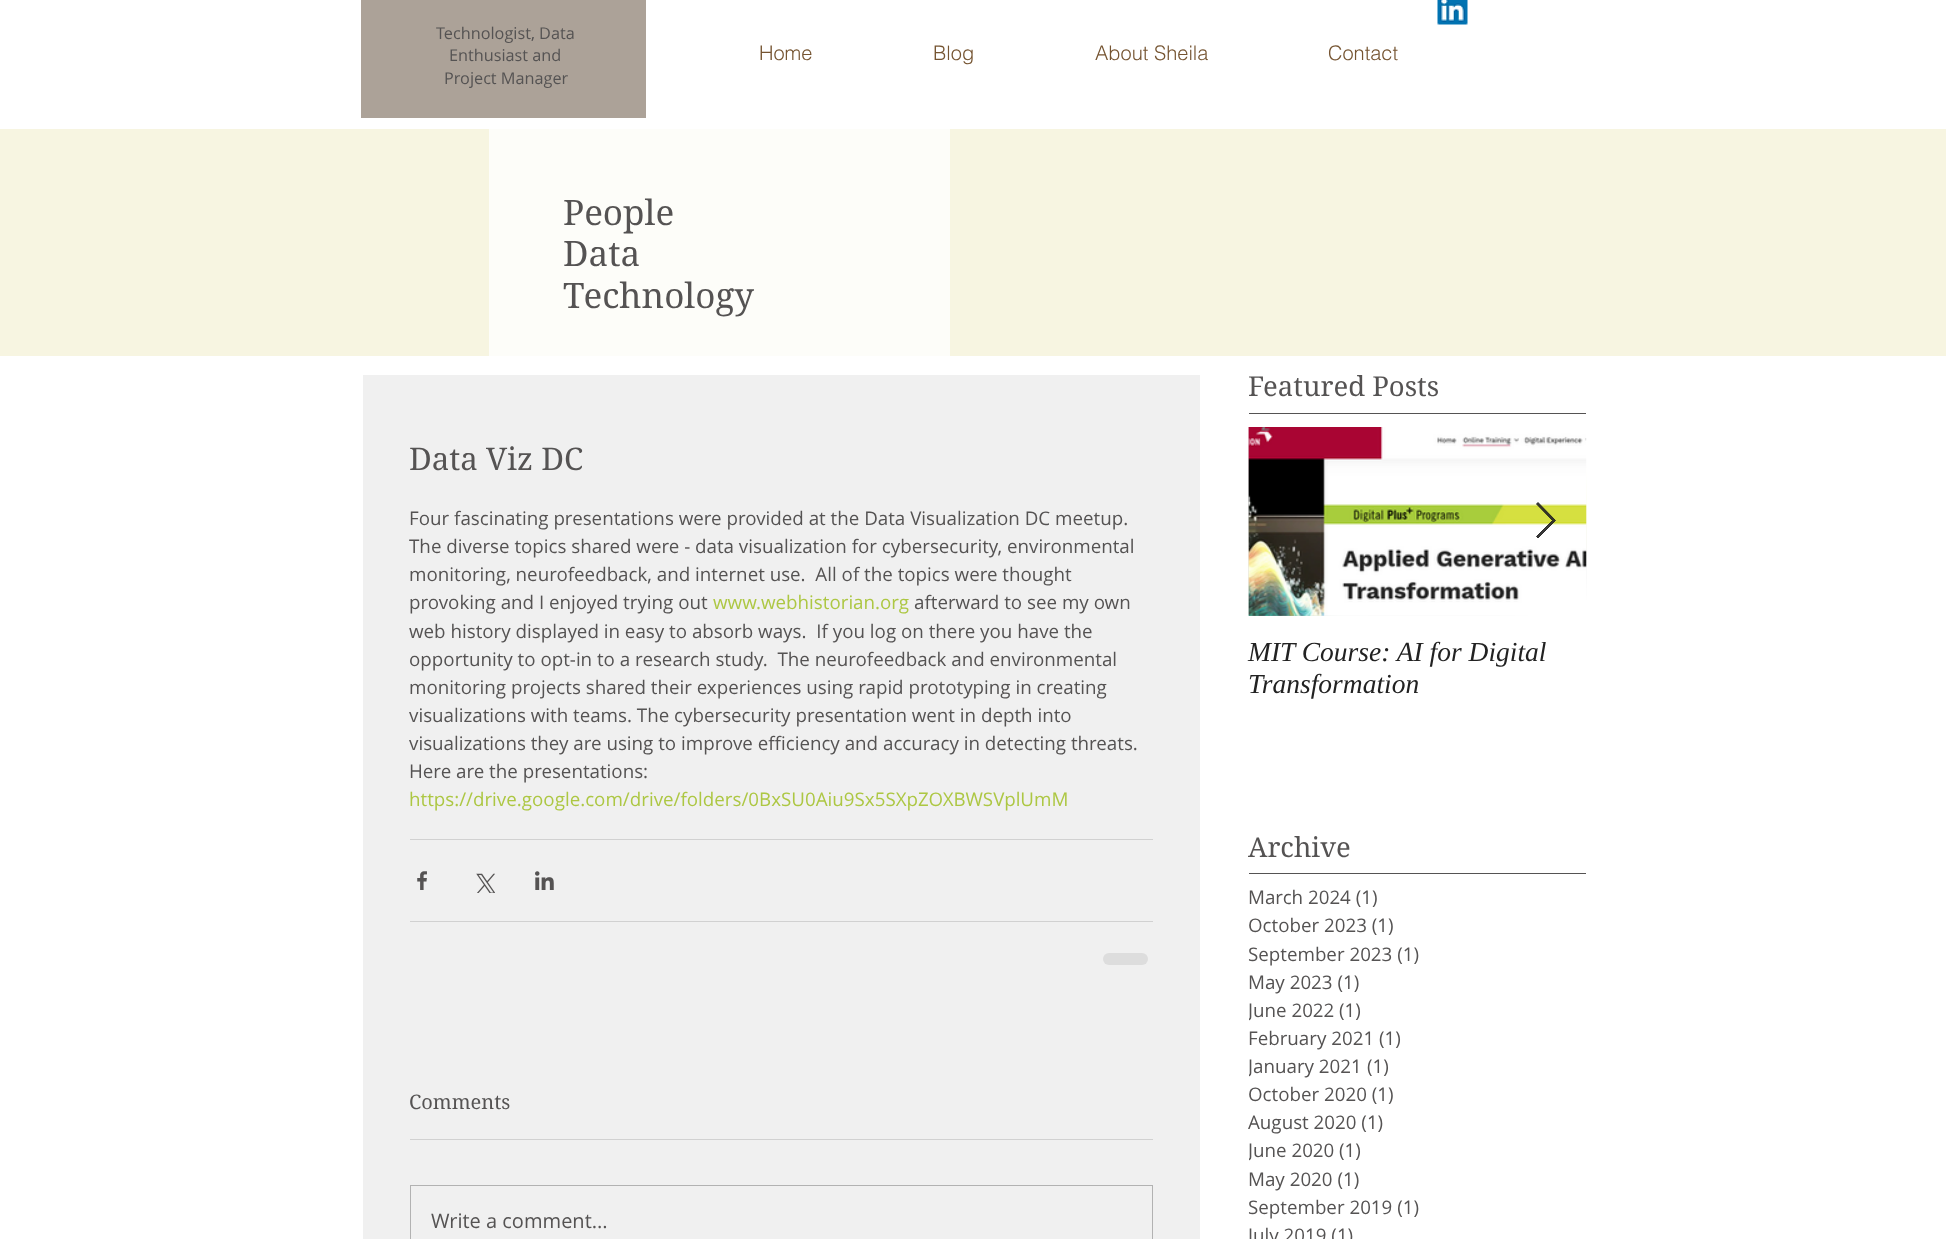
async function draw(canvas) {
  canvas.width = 1946;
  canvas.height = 1239;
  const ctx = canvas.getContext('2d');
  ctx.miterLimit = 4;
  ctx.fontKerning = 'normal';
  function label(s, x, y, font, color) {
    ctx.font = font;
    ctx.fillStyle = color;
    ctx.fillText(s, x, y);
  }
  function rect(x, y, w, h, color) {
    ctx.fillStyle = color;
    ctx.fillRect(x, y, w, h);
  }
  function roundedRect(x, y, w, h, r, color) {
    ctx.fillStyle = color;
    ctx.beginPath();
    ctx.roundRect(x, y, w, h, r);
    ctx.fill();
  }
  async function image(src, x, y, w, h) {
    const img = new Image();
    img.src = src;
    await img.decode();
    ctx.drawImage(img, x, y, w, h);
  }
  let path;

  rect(0, 0, 1946, 1239, '#fff');
  await image('assets/img1.png', 1437, 0, 31, 25);
  rect(361, 0, 285, 118, '#aca298');
  label('Technologist, Data', 436, 39, '16.25px Open Sans', '#555353');
  label('Enthusiast and', 449, 61, '16.25px Open Sans', '#555353');
  label('Project Manager', 444, 84, '16.25px Open Sans', '#555353');
  label('Home', 759, 60, '300 20px helvetica', '#755431');
  label('Blog', 933, 60, '300 20px helvetica', '#755431');
  label('About Sheila', 1095, 60, '300 20px helvetica', '#755431');
  label('Contact', 1328, 60, '300 20px helvetica', '#755431');
  rect(0, 129, 1946, 227, '#f7f5e1');
  rect(489, 129, 461, 227, '#fdfdf9');
  label('People', 563, 225, '35px "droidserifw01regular"', '#555353');
  label('Data', 563, 266, '35px "droidserifw01regular"', '#555353');
  label('Technology', 563, 308, '35px "droidserifw01regular"', '#555353');
  label('Featured Posts', 1248, 396, '27.5px "droidserifw01regular"', '#555353');
  rect(1249, 413, 337, 1, '#555353');
  rect(363, 375, 837, 864, '#f0f0f0');
  label('Data Viz DC', 409, 470, '31.25px "droidserifw01regular"', '#555353');
  label('Four fascinating presentations were provided at the Data Visualization DC meetup.', 409, 525, '18.75px Open Sans', '#555353');
  label('The diverse topics shared were - data visualization for cybersecurity, environmental', 409, 553, '18.75px Open Sans', '#555353');
  label('monitoring, neurofeedback, and internet use.  All of the topics were thought', 409, 581, '18.75px Open Sans', '#555353');
  label('provoking and I enjoyed trying out', 409, 609, '18.75px Open Sans', '#555353');
  label('www.webhistorian.org', 713, 609, '18.75px Open Sans', '#adc743');
  label('afterward to see my own', 914, 609, '18.75px Open Sans', '#555353');
  label('web history displayed in easy to absorb ways.  If you log on there you have the', 409, 638, '18.75px Open Sans', '#555353');
  label('opportunity to opt-in to a research study.  The neurofeedback and environmental', 409, 666, '18.75px Open Sans', '#555353');
  label('monitoring projects shared their experiences using rapid prototyping in creating', 409, 694, '18.75px Open Sans', '#555353');
  label('visualizations with teams. The cybersecurity presentation went in depth into', 409, 722, '18.75px Open Sans', '#555353');
  label('visualizations they are using to improve efficiency and accuracy in detecting threats.', 409, 750, '18.75px Open Sans', '#555353');
  label('Here are the presentations:', 409, 778, '18.75px Open Sans', '#555353');
  label('https://drive.google.com/drive/folders/0BxSU0Aiu9Sx5SXpZOXBWSVplUmM', 409, 806, '18.75px Open Sans', '#adc743');
  rect(410, 839, 743, 1, '#d1d1d1');
  await image('assets/img2.png', 417, 871, 10, 19);
  await image('assets/img3.png', 476, 873, 19, 20);
  await image('assets/img4.png', 535, 871, 19, 19);
  rect(410, 921, 743, 1, '#d1d1d1');
  roundedRect(1103, 953, 45, 12, 6, '#ddd');
  label('Comments', 409, 1109, '20px "droidserifw01regular"', '#555353');
  rect(410, 1139, 743, 1, '#d1d1d1');
  ctx.strokeStyle = '#b2b2b2';
  ctx.strokeRect(410.5, 1185.5, 742, 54);
  label('Write a comment...', 431, 1228, '20px Open Sans', '#555353');
  await image('assets/img5.png', 1248, 427, 339, 189);
  await image('assets/img6.png', 1248, 427, 339, 189);
  ctx.fillStyle = '#222222e6';
  path = new Path2D('M1536.5 504L1538 502.5L1555.5 520.5L1538 538L1536.5 536.5L1552.5 520.5Z');
  ctx.fill(path);
  ctx.strokeStyle = '#222222e6';
  ctx.stroke(path);
  label('MIT Course: AI for Digital', 1248, 661, 'italic 27.5px Liberation Serif', '#222');
  label('Transformation', 1248, 693, 'italic 27.5px Liberation Serif', '#222');
  label('Archive', 1248, 857, '27.5px "droidserifw01regular"', '#555353');
  rect(1249, 873, 337, 1, '#555353');
  label('March 2024 (1)', 1248, 904, '18.75px Open Sans', '#555353');
  label('October 2023 (1)', 1248, 932, '18.75px Open Sans', '#555353');
  label('September 2023 (1)', 1248, 961, '18.75px Open Sans', '#555353');
  label('May 2023 (1)', 1248, 989, '18.75px Open Sans', '#555353');
  ctx.save();
  ctx.beginPath();
  ctx.rect(1249, 995, 112, 29);
  ctx.clip();
  label('June 2022', 1248, 1017, '18.75px Open Sans', '#555353');
  ctx.restore();
  label('(1)', 1339, 1017, '18.75px Open Sans', '#555353');
  label('February 2021 (1)', 1248, 1045, '18.75px Open Sans', '#555353');
  ctx.save();
  ctx.beginPath();
  ctx.rect(1249, 1051, 140, 29);
  ctx.clip();
  label('January 2021', 1248, 1073, '18.75px Open Sans', '#555353');
  ctx.restore();
  label('(1)', 1367, 1073, '18.75px Open Sans', '#555353');
  label('October 2020 (1)', 1248, 1101, '18.75px Open Sans', '#555353');
  label('August 2020 (1)', 1248, 1129, '18.75px Open Sans', '#555353');
  ctx.save();
  ctx.beginPath();
  ctx.rect(1249, 1136, 112, 28);
  ctx.clip();
  label('June 2020', 1248, 1157, '18.75px Open Sans', '#555353');
  ctx.restore();
  label('(1)', 1339, 1157, '18.75px Open Sans', '#555353');
  label('May 2020 (1)', 1248, 1186, '18.75px Open Sans', '#555353');
  label('September 2019 (1)', 1248, 1214, '18.75px Open Sans', '#555353');
  label('July 2019 (1)', 1248, 1242, '18.75px Open Sans', '#555353');
}

draw(document.querySelector('canvas'));
